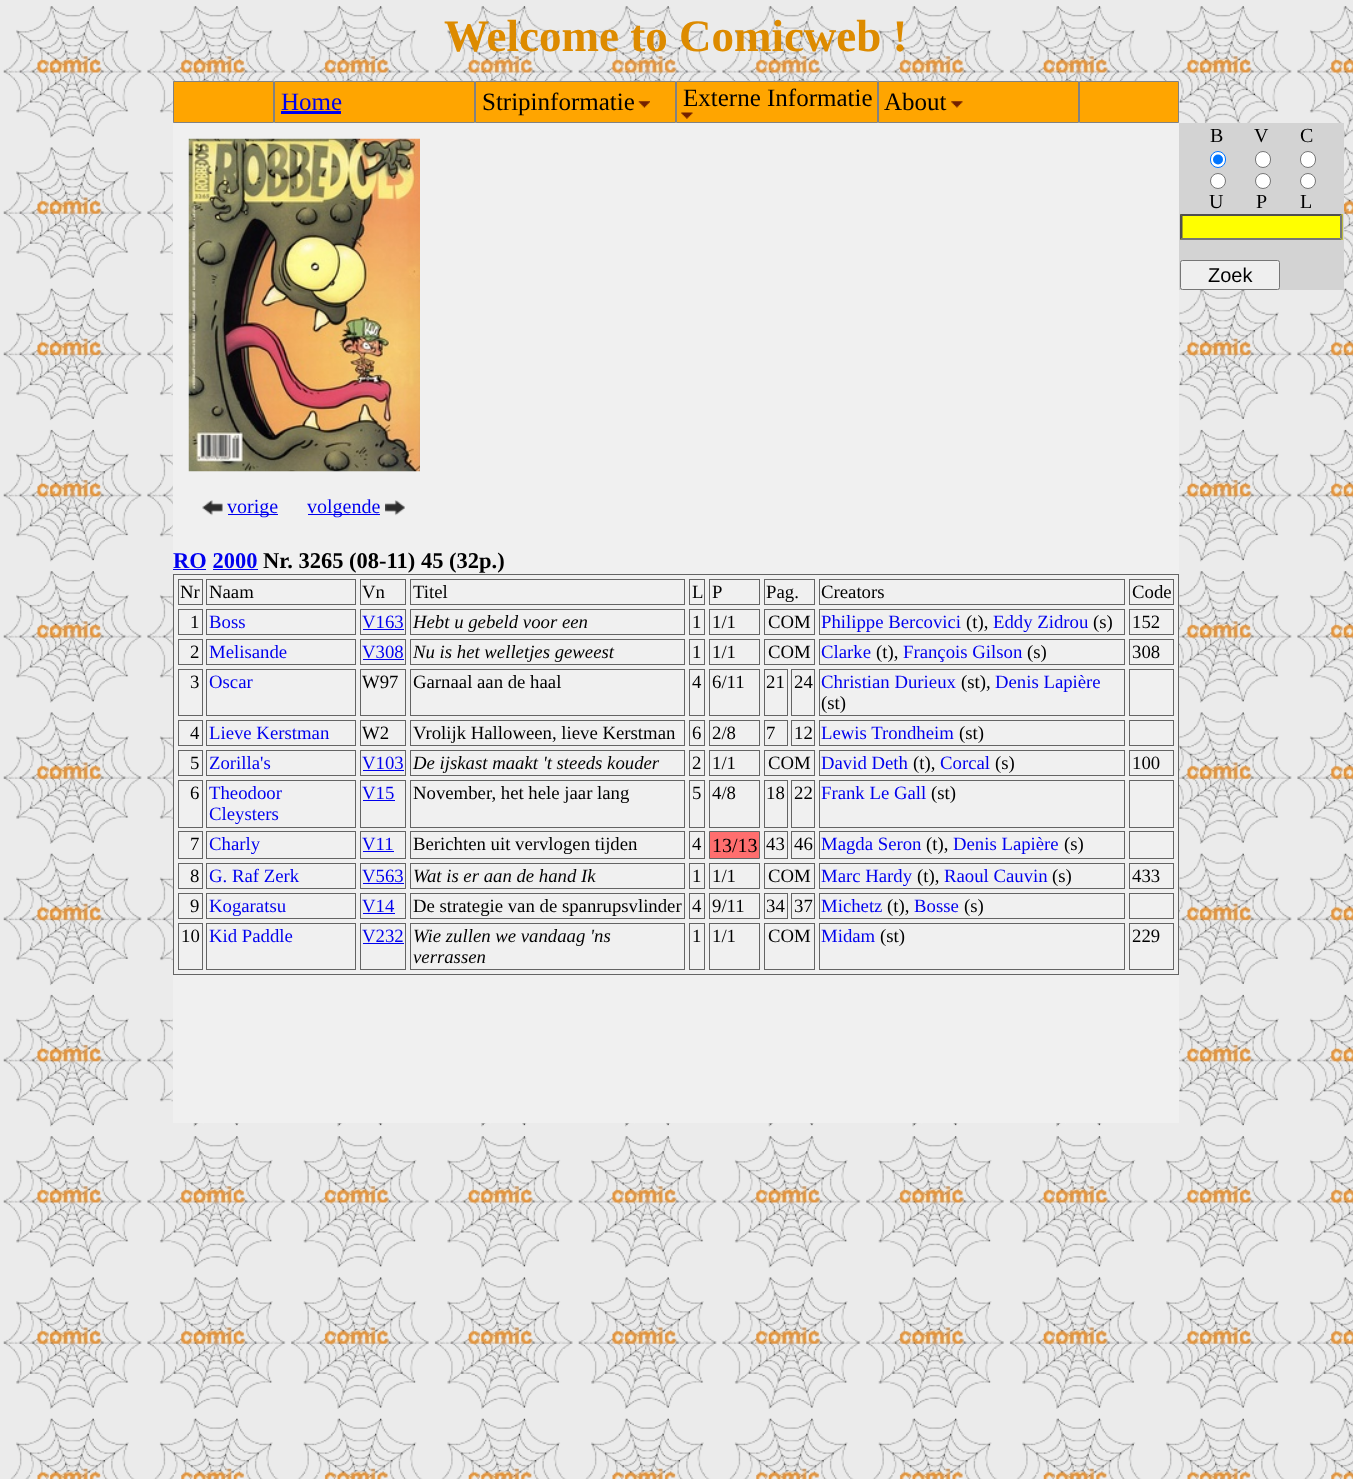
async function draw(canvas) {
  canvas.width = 1353;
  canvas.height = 1479;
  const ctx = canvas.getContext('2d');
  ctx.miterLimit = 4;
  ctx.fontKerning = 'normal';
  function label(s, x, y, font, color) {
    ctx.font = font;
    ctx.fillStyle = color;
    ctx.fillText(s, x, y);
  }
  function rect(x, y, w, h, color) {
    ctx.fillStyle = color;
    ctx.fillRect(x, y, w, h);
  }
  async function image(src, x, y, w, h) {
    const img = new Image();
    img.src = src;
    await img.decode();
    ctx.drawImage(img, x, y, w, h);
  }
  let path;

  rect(0, 0, 1353, 1479, '#fff');
  await image('assets/img1.png', 0, 0, 1353, 1479);
  label('Welcome to Comicweb !', 444, 51, 'bold 45px Liberation Serif', '#dd8b00');
  ctx.fillStyle = '#ffa500';
  ctx.beginPath();
  ctx.rect(173.5, 81.5, 100, 41);
  ctx.fill();
  ctx.strokeStyle = '#828282';
  ctx.stroke();
  ctx.beginPath();
  ctx.rect(274.5, 81.5, 200, 41);
  ctx.fill();
  ctx.stroke();
  label('Home', 281, 110, '25px Liberation Serif', '#00e');
  rect(281, 111, 60, 3, '#00e');
  ctx.fillStyle = '#ffa500';
  ctx.beginPath();
  ctx.rect(475.5, 81.5, 200, 41);
  ctx.fill();
  ctx.stroke();
  label('Stripinformatie', 482, 110, '25px Liberation Serif', '#000');
  await image('assets/img2.png', 638, 101, 12, 7);
  ctx.fillStyle = '#ffa500';
  ctx.beginPath();
  ctx.rect(676.5, 81.5, 201, 41);
  ctx.fill();
  ctx.stroke();
  label('Externe Informatie', 683, 106, '25px Liberation Serif', '#000');
  await image('assets/img3.png', 681, 112, 12, 7);
  ctx.fillStyle = '#ffa500';
  ctx.beginPath();
  ctx.rect(878.5, 81.5, 200, 41);
  ctx.fill();
  ctx.stroke();
  label('About', 884, 110, '25px Liberation Serif', '#000');
  await image('assets/img4.png', 951, 101, 12, 7);
  ctx.fillStyle = '#ffa500';
  ctx.beginPath();
  ctx.rect(1079.5, 81.5, 99, 41);
  ctx.fill();
  ctx.stroke();
  rect(1179, 123, 165, 167, '#d3d3d3');
  label('B', 1210, 142, '20px Liberation Serif', '#000');
  label('V', 1254, 142, '20px Liberation Serif', '#000');
  label('C', 1300, 142, '20px Liberation Serif', '#000');
  ctx.fillStyle = '#fff';
  ctx.beginPath();
  ctx.roundRect(1210.5, 151.5, 15, 16, 7.5);
  ctx.fill();
  ctx.strokeStyle = '#0075ff';
  ctx.stroke();
  ctx.fillStyle = '#0075ff';
  ctx.beginPath();
  ctx.arc(1218, 159.5, 5, 0, 2 * Math.PI);
  ctx.fill();
  ctx.fillStyle = '#fff';
  ctx.beginPath();
  ctx.roundRect(1255.5, 151.5, 15, 16, 7.5);
  ctx.fill();
  ctx.strokeStyle = '#767676';
  ctx.stroke();
  ctx.beginPath();
  ctx.roundRect(1300.5, 151.5, 15, 16, 7.5);
  ctx.fill();
  ctx.stroke();
  ctx.beginPath();
  ctx.arc(1218, 181, 7.5, 0, 2 * Math.PI);
  ctx.fill();
  ctx.stroke();
  ctx.beginPath();
  ctx.arc(1263, 181, 7.5, 0, 2 * Math.PI);
  ctx.fill();
  ctx.stroke();
  ctx.beginPath();
  ctx.arc(1308, 181, 7.5, 0, 2 * Math.PI);
  ctx.fill();
  ctx.stroke();
  label('U', 1209, 208, '20px Liberation Serif', '#000');
  label('P', 1256, 208, '20px Liberation Serif', '#000');
  label('L', 1300, 208, '20px Liberation Serif', '#000');
  rect(1180, 214, 163, 26, '#ff0');
  ctx.fillStyle = '#4f4f4f';
  path = new Path2D('M1180 214H1342L1340 216H1182Z');
  ctx.fill(path);
  ctx.fillStyle = '#767676';
  path = new Path2D('M1342.5 214V240L1340 237.5V216Z');
  ctx.fill(path);
  path = new Path2D('M1342 240H1180L1182 238H1340Z');
  ctx.fill(path);
  ctx.fillStyle = '#4f4f4f';
  path = new Path2D('M1180 240V214L1182.5 216V237.5Z');
  ctx.fill(path);
  ctx.fillStyle = '#efefef';
  ctx.beginPath();
  ctx.roundRect(1180.5, 260.5, 99, 29, 2);
  ctx.fill();
  ctx.stroke();
  label('Zoek', 1208, 282, '20px Liberation Sans', '#000');
  rect(173, 123, 1006, 1000, '#f0f0f0');
  await image('assets/img5.png', 188, 138, 232, 334);
  await image('assets/img6.png', 202, 500, 21, 16);
  rect(228, 514, 50, 1, '#00e');
  label('vorige', 227, 513, '20px Liberation Serif', '#00e');
  rect(308, 514, 72, 1, '#00e');
  label('volgende', 307, 513, '20px Liberation Serif', '#00e');
  await image('assets/img7.png', 385, 500, 20, 16);
  label('RO 2000', 173, 568, 'bold 22.5px Liberation Serif', '#00e');
  rect(173, 569, 33, 1, '#00e');
  rect(213, 569, 45, 1, '#00e');
  label('Nr. 3265 (08-11) 45 (32p.)', 263, 568, 'bold 22.5px Liberation Serif', '#000');
  ctx.strokeStyle = '#646464';
  ctx.strokeRect(173.5, 574.5, 1005, 400);
  ctx.strokeRect(178.5, 579.5, 24, 25);
  label('Nr', 180, 598, '18.75px Liberation Serif', '#000');
  ctx.strokeRect(206.5, 579.5, 149, 25);
  label('Naam', 209, 598, '18.75px Liberation Serif', '#000');
  ctx.strokeRect(360.5, 579.5, 45, 25);
  label('Vn', 362, 598, '18.75px Liberation Serif', '#000');
  ctx.strokeRect(410.5, 579.5, 274, 25);
  label('Titel', 413, 598, '18.75px Liberation Serif', '#000');
  ctx.strokeRect(689.5, 579.5, 15, 25);
  label('L', 692, 598, '18.75px Liberation Serif', '#000');
  ctx.strokeRect(709.5, 579.5, 50, 25);
  label('P', 712, 598, '18.75px Liberation Serif', '#000');
  ctx.strokeRect(764.5, 579.5, 50, 25);
  label('Pag.', 766, 598, '18.75px Liberation Serif', '#000');
  ctx.strokeRect(819.5, 579.5, 305, 25);
  label('Creators', 821, 598, '18.75px Liberation Serif', '#000');
  ctx.strokeRect(1129.5, 579.5, 44, 25);
  label('Code', 1132, 598, '18.75px Liberation Serif', '#000');
  ctx.strokeRect(178.5, 609.5, 24, 25);
  label('1', 190, 628, '18.75px Liberation Serif', '#000');
  ctx.strokeRect(206.5, 609.5, 149, 25);
  label('Boss', 209, 628, '18.75px Liberation Serif', '#00e');
  ctx.strokeRect(360.5, 609.5, 45, 25);
  label('V163', 362, 628, '18.75px Liberation Serif', '#00e');
  rect(363, 629, 41, 1, '#00e');
  ctx.strokeRect(410.5, 609.5, 274, 25);
  label('Hebt u gebeld voor een', 413, 628, 'italic 18.75px Liberation Serif', '#000');
  ctx.strokeRect(689.5, 609.5, 15, 25);
  label('1', 692, 628, '18.75px Liberation Serif', '#000');
  ctx.strokeRect(709.5, 609.5, 50, 25);
  label('1/1', 712, 628, '18.75px Liberation Serif', '#000');
  ctx.strokeRect(764.5, 609.5, 50, 25);
  label('COM', 768, 628, '18.75px Liberation Serif', '#000');
  ctx.strokeRect(819.5, 609.5, 305, 25);
  label('Philippe Bercovici', 821, 628, '18.75px Liberation Serif', '#00e');
  label('(t),', 966, 628, '18.75px Liberation Serif', '#000');
  label('Eddy Zidrou', 993, 628, '18.75px Liberation Serif', '#00e');
  label('(s)', 1093, 628, '18.75px Liberation Serif', '#000');
  ctx.strokeRect(1129.5, 609.5, 44, 25);
  label('152', 1132, 628, '18.75px Liberation Serif', '#000');
  ctx.strokeRect(178.5, 639.5, 24, 25);
  label('2', 190, 658, '18.75px Liberation Serif', '#000');
  ctx.strokeRect(206.5, 639.5, 149, 25);
  label('Melisande', 209, 658, '18.75px Liberation Serif', '#00e');
  ctx.strokeRect(360.5, 639.5, 45, 25);
  label('V308', 362, 658, '18.75px Liberation Serif', '#00e');
  rect(363, 659, 41, 1, '#00e');
  ctx.strokeRect(410.5, 639.5, 274, 25);
  label('Nu is het welletjes geweest', 413, 658, 'italic 18.75px Liberation Serif', '#000');
  ctx.strokeRect(689.5, 639.5, 15, 25);
  label('1', 692, 658, '18.75px Liberation Serif', '#000');
  ctx.strokeRect(709.5, 639.5, 50, 25);
  label('1/1', 712, 658, '18.75px Liberation Serif', '#000');
  ctx.strokeRect(764.5, 639.5, 50, 25);
  label('COM', 768, 658, '18.75px Liberation Serif', '#000');
  ctx.strokeRect(819.5, 639.5, 305, 25);
  label('Clarke', 821, 658, '18.75px Liberation Serif', '#00e');
  label('(t),', 876, 658, '18.75px Liberation Serif', '#000');
  label('François Gilson', 903, 658, '18.75px Liberation Serif', '#00e');
  label('(s)', 1027, 658, '18.75px Liberation Serif', '#000');
  ctx.strokeRect(1129.5, 639.5, 44, 25);
  label('308', 1132, 658, '18.75px Liberation Serif', '#000');
  ctx.strokeRect(178.5, 669.5, 24, 46);
  label('3', 190, 688, '18.75px Liberation Serif', '#000');
  ctx.strokeRect(206.5, 669.5, 149, 46);
  label('Oscar', 209, 688, '18.75px Liberation Serif', '#00e');
  ctx.strokeRect(360.5, 669.5, 45, 46);
  label('W97', 362, 688, '18.75px Liberation Serif', '#000');
  ctx.strokeRect(410.5, 669.5, 274, 46);
  label('Garnaal aan de haal', 413, 688, '18.75px Liberation Serif', '#000');
  ctx.strokeRect(689.5, 669.5, 15, 46);
  label('4', 692, 688, '18.75px Liberation Serif', '#000');
  ctx.strokeRect(709.5, 669.5, 50, 46);
  label('6/11', 712, 688, '18.75px Liberation Serif', '#000');
  ctx.strokeRect(764.5, 669.5, 23, 46);
  label('21', 766, 688, '18.75px Liberation Serif', '#000');
  ctx.strokeRect(791.5, 669.5, 23, 46);
  label('24', 794, 688, '18.75px Liberation Serif', '#000');
  ctx.strokeRect(819.5, 669.5, 305, 46);
  label('Christian Durieux', 821, 688, '18.75px Liberation Serif', '#00e');
  label('(st),', 961, 688, '18.75px Liberation Serif', '#000');
  label('Denis Lapière', 995, 688, '18.75px Liberation Serif', '#00e');
  label('(st)', 821, 709, '18.75px Liberation Serif', '#000');
  ctx.strokeRect(1129.5, 669.5, 44, 46);
  ctx.strokeRect(178.5, 720.5, 24, 25);
  label('4', 190, 739, '18.75px Liberation Serif', '#000');
  ctx.strokeRect(206.5, 720.5, 149, 25);
  label('Lieve Kerstman', 209, 739, '18.75px Liberation Serif', '#00e');
  ctx.strokeRect(360.5, 720.5, 45, 25);
  label('W2', 362, 739, '18.75px Liberation Serif', '#000');
  ctx.strokeRect(410.5, 720.5, 274, 25);
  label('Vrolijk Halloween, lieve Kerstman', 413, 739, '18.75px Liberation Serif', '#000');
  ctx.strokeRect(689.5, 720.5, 15, 25);
  label('6', 692, 739, '18.75px Liberation Serif', '#000');
  ctx.strokeRect(709.5, 720.5, 50, 25);
  label('2/8', 712, 739, '18.75px Liberation Serif', '#000');
  ctx.strokeRect(764.5, 720.5, 23, 25);
  label('7', 766, 739, '18.75px Liberation Serif', '#000');
  ctx.strokeRect(791.5, 720.5, 23, 25);
  label('12', 794, 739, '18.75px Liberation Serif', '#000');
  ctx.strokeRect(819.5, 720.5, 305, 25);
  label('Lewis Trondheim', 821, 739, '18.75px Liberation Serif', '#00e');
  label('(st)', 959, 739, '18.75px Liberation Serif', '#000');
  ctx.strokeRect(1129.5, 720.5, 44, 25);
  ctx.strokeRect(178.5, 750.5, 24, 25);
  label('5', 190, 769, '18.75px Liberation Serif', '#000');
  ctx.strokeRect(206.5, 750.5, 149, 25);
  label('Zorilla\'s', 209, 769, '18.75px Liberation Serif', '#00e');
  ctx.strokeRect(360.5, 750.5, 45, 25);
  label('V103', 362, 769, '18.75px Liberation Serif', '#00e');
  rect(363, 770, 41, 1, '#00e');
  ctx.strokeRect(410.5, 750.5, 274, 25);
  label('De ijskast maakt \'t steeds kouder', 413, 769, 'italic 18.75px Liberation Serif', '#000');
  ctx.strokeRect(689.5, 750.5, 15, 25);
  label('2', 692, 769, '18.75px Liberation Serif', '#000');
  ctx.strokeRect(709.5, 750.5, 50, 25);
  label('1/1', 712, 769, '18.75px Liberation Serif', '#000');
  ctx.strokeRect(764.5, 750.5, 50, 25);
  label('COM', 768, 769, '18.75px Liberation Serif', '#000');
  ctx.strokeRect(819.5, 750.5, 305, 25);
  label('David Deth', 821, 769, '18.75px Liberation Serif', '#00e');
  label('(t),', 913, 769, '18.75px Liberation Serif', '#000');
  label('Corcal', 940, 769, '18.75px Liberation Serif', '#00e');
  label('(s)', 995, 769, '18.75px Liberation Serif', '#000');
  ctx.strokeRect(1129.5, 750.5, 44, 25);
  label('100', 1132, 769, '18.75px Liberation Serif', '#000');
  ctx.strokeRect(178.5, 780.5, 24, 47);
  label('6', 190, 799, '18.75px Liberation Serif', '#000');
  ctx.strokeRect(206.5, 780.5, 149, 47);
  label('Theodoor', 209, 799, '18.75px Liberation Serif', '#00e');
  label('Cleysters', 209, 820, '18.75px Liberation Serif', '#00e');
  ctx.strokeRect(360.5, 780.5, 45, 47);
  label('V15', 362, 799, '18.75px Liberation Serif', '#00e');
  rect(363, 800, 32, 1, '#00e');
  ctx.strokeRect(410.5, 780.5, 274, 47);
  label('November, het hele jaar lang', 413, 799, '18.75px Liberation Serif', '#000');
  ctx.strokeRect(689.5, 780.5, 15, 47);
  label('5', 692, 799, '18.75px Liberation Serif', '#000');
  ctx.strokeRect(709.5, 780.5, 50, 47);
  label('4/8', 712, 799, '18.75px Liberation Serif', '#000');
  ctx.strokeRect(764.5, 780.5, 23, 47);
  label('18', 766, 799, '18.75px Liberation Serif', '#000');
  ctx.strokeRect(791.5, 780.5, 23, 47);
  label('22', 794, 799, '18.75px Liberation Serif', '#000');
  ctx.strokeRect(819.5, 780.5, 305, 47);
  label('Frank Le Gall', 821, 799, '18.75px Liberation Serif', '#00e');
  label('(st)', 931, 799, '18.75px Liberation Serif', '#000');
  ctx.strokeRect(1129.5, 780.5, 44, 47);
  ctx.strokeRect(178.5, 831.5, 24, 27);
  label('7', 190, 850, '18.75px Liberation Serif', '#000');
  ctx.strokeRect(206.5, 831.5, 149, 27);
  label('Charly', 209, 850, '18.75px Liberation Serif', '#00e');
  ctx.strokeRect(360.5, 831.5, 45, 27);
  label('V11', 362, 850, '18.75px Liberation Serif', '#00e');
  rect(363, 851, 31, 1, '#00e');
  ctx.strokeRect(410.5, 831.5, 274, 27);
  label('Berichten uit vervlogen tijden', 413, 850, '18.75px Liberation Serif', '#000');
  ctx.strokeRect(689.5, 831.5, 15, 27);
  label('4', 692, 850, '18.75px Liberation Serif', '#000');
  ctx.fillStyle = '#ff6e6e';
  ctx.beginPath();
  ctx.rect(709.5, 831.5, 50, 27);
  ctx.fill();
  ctx.stroke();
  label('13/13', 712, 852, '20px Liberation Serif', '#000');
  ctx.strokeRect(764.5, 831.5, 23, 27);
  label('43', 766, 850, '18.75px Liberation Serif', '#000');
  ctx.strokeRect(791.5, 831.5, 23, 27);
  label('46', 794, 850, '18.75px Liberation Serif', '#000');
  ctx.strokeRect(819.5, 831.5, 305, 27);
  label('Magda Seron', 821, 850, '18.75px Liberation Serif', '#00e');
  label('(t),', 926, 850, '18.75px Liberation Serif', '#000');
  label('Denis Lapière', 953, 850, '18.75px Liberation Serif', '#00e');
  label('(s)', 1064, 850, '18.75px Liberation Serif', '#000');
  ctx.strokeRect(1129.5, 831.5, 44, 27);
  ctx.strokeRect(178.5, 863.5, 24, 25);
  label('8', 190, 882, '18.75px Liberation Serif', '#000');
  ctx.strokeRect(206.5, 863.5, 149, 25);
  label('G. Raf Zerk', 209, 882, '18.75px Liberation Serif', '#00e');
  ctx.strokeRect(360.5, 863.5, 45, 25);
  label('V563', 362, 882, '18.75px Liberation Serif', '#00e');
  rect(363, 883, 41, 1, '#00e');
  ctx.strokeRect(410.5, 863.5, 274, 25);
  label('Wat is er aan de hand Ik', 413, 882, 'italic 18.75px Liberation Serif', '#000');
  ctx.strokeRect(689.5, 863.5, 15, 25);
  label('1', 692, 882, '18.75px Liberation Serif', '#000');
  ctx.strokeRect(709.5, 863.5, 50, 25);
  label('1/1', 712, 882, '18.75px Liberation Serif', '#000');
  ctx.strokeRect(764.5, 863.5, 50, 25);
  label('COM', 768, 882, '18.75px Liberation Serif', '#000');
  ctx.strokeRect(819.5, 863.5, 305, 25);
  label('Marc Hardy', 821, 882, '18.75px Liberation Serif', '#00e');
  label('(t),', 917, 882, '18.75px Liberation Serif', '#000');
  label('Raoul Cauvin', 944, 882, '18.75px Liberation Serif', '#00e');
  label('(s)', 1052, 882, '18.75px Liberation Serif', '#000');
  ctx.strokeRect(1129.5, 863.5, 44, 25);
  label('433', 1132, 882, '18.75px Liberation Serif', '#000');
  ctx.strokeRect(178.5, 893.5, 24, 25);
  label('9', 190, 912, '18.75px Liberation Serif', '#000');
  ctx.strokeRect(206.5, 893.5, 149, 25);
  label('Kogaratsu', 209, 912, '18.75px Liberation Serif', '#00e');
  ctx.strokeRect(360.5, 893.5, 45, 25);
  label('V14', 362, 912, '18.75px Liberation Serif', '#00e');
  rect(363, 913, 32, 1, '#00e');
  ctx.strokeRect(410.5, 893.5, 274, 25);
  label('De strategie van de spanrupsvlinder', 413, 912, '18.75px Liberation Serif', '#000');
  ctx.strokeRect(689.5, 893.5, 15, 25);
  label('4', 692, 912, '18.75px Liberation Serif', '#000');
  ctx.strokeRect(709.5, 893.5, 50, 25);
  label('9/11', 712, 912, '18.75px Liberation Serif', '#000');
  ctx.strokeRect(764.5, 893.5, 23, 25);
  label('34', 766, 912, '18.75px Liberation Serif', '#000');
  ctx.strokeRect(791.5, 893.5, 23, 25);
  label('37', 794, 912, '18.75px Liberation Serif', '#000');
  ctx.strokeRect(819.5, 893.5, 305, 25);
  label('Michetz', 821, 912, '18.75px Liberation Serif', '#00e');
  label('(t),', 887, 912, '18.75px Liberation Serif', '#000');
  label('Bosse', 914, 912, '18.75px Liberation Serif', '#00e');
  label('(s)', 964, 912, '18.75px Liberation Serif', '#000');
  ctx.strokeRect(1129.5, 893.5, 44, 25);
  ctx.strokeRect(178.5, 923.5, 24, 46);
  label('10', 181, 942, '18.75px Liberation Serif', '#000');
  ctx.strokeRect(206.5, 923.5, 149, 46);
  label('Kid Paddle', 209, 942, '18.75px Liberation Serif', '#00e');
  ctx.strokeRect(360.5, 923.5, 45, 46);
  label('V232', 362, 942, '18.75px Liberation Serif', '#00e');
  rect(363, 943, 41, 1, '#00e');
  ctx.strokeRect(410.5, 923.5, 274, 46);
  label('Wie zullen we vandaag \'ns', 413, 942, 'italic 18.75px Liberation Serif', '#000');
  label('verrassen', 413, 963, 'italic 18.75px Liberation Serif', '#000');
  ctx.strokeRect(689.5, 923.5, 15, 46);
  label('1', 692, 942, '18.75px Liberation Serif', '#000');
  ctx.strokeRect(709.5, 923.5, 50, 46);
  label('1/1', 712, 942, '18.75px Liberation Serif', '#000');
  ctx.strokeRect(764.5, 923.5, 50, 46);
  label('COM', 768, 942, '18.75px Liberation Serif', '#000');
  ctx.strokeRect(819.5, 923.5, 305, 46);
  label('Midam', 821, 942, '18.75px Liberation Serif', '#00e');
  label('(st)', 880, 942, '18.75px Liberation Serif', '#000');
  ctx.strokeRect(1129.5, 923.5, 44, 46);
  label('229', 1132, 942, '18.75px Liberation Serif', '#000');
}

draw(document.querySelector('canvas'));
